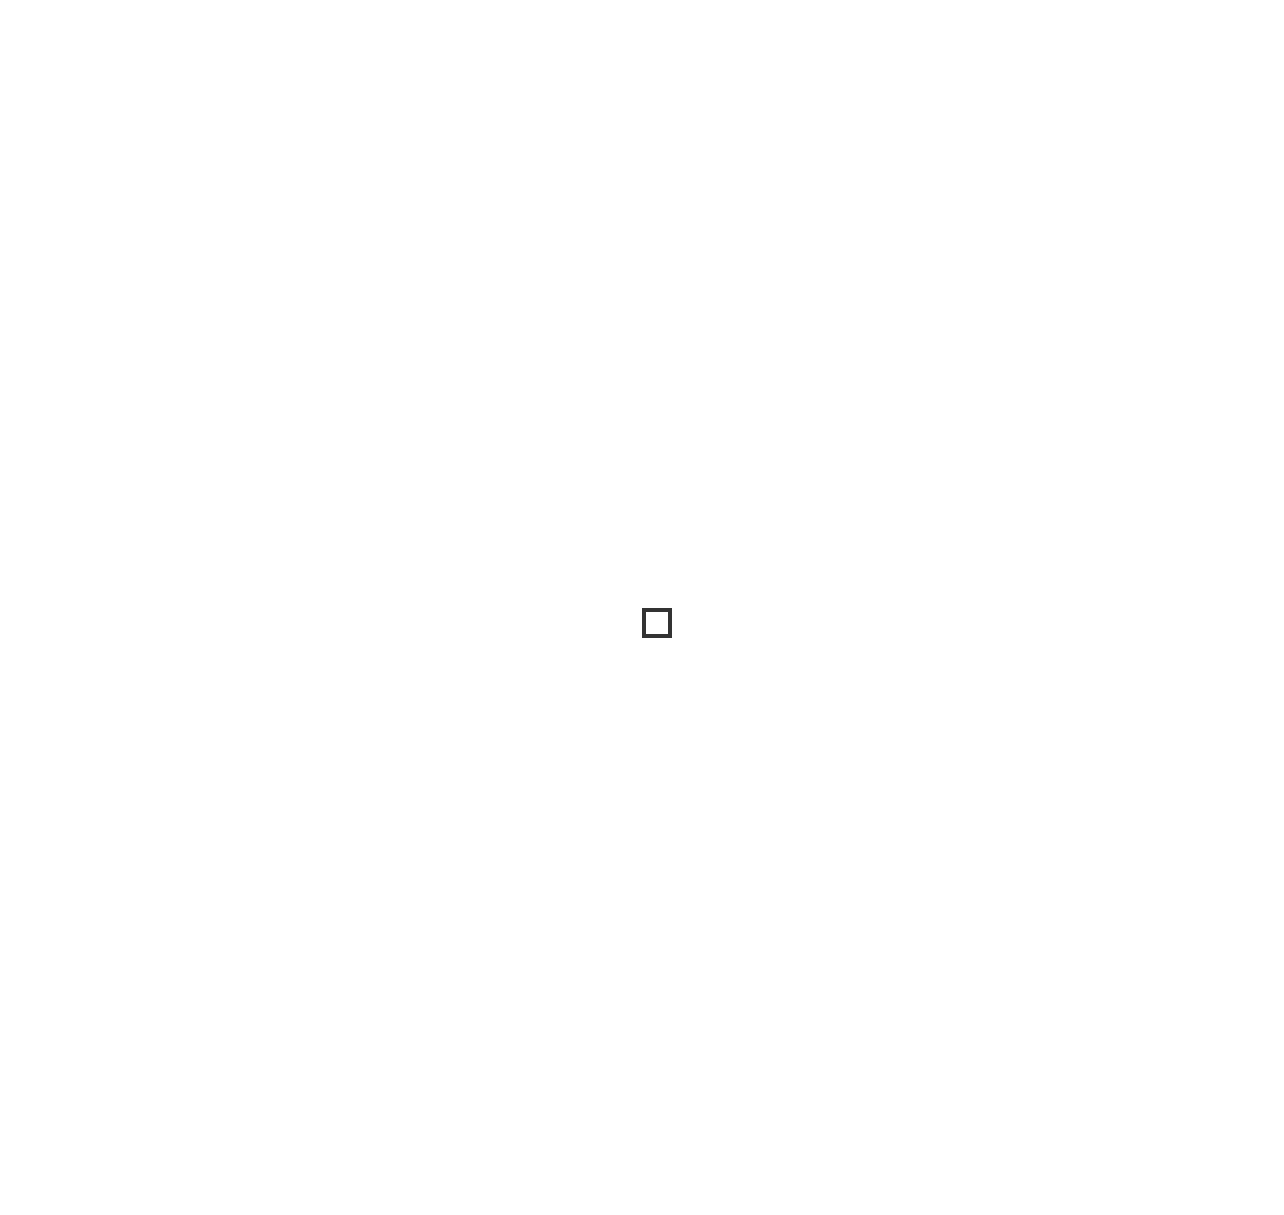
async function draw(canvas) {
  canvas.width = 1284;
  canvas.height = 1215;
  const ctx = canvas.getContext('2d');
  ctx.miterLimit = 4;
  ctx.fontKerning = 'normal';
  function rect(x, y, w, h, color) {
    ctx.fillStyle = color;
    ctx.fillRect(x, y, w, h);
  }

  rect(0, 0, 1284, 1215, '#fff');
  ctx.strokeStyle = '#333';
  ctx.lineWidth = 4;
  ctx.strokeRect(644, 610, 26, 26);
}

draw(document.querySelector('canvas'));
